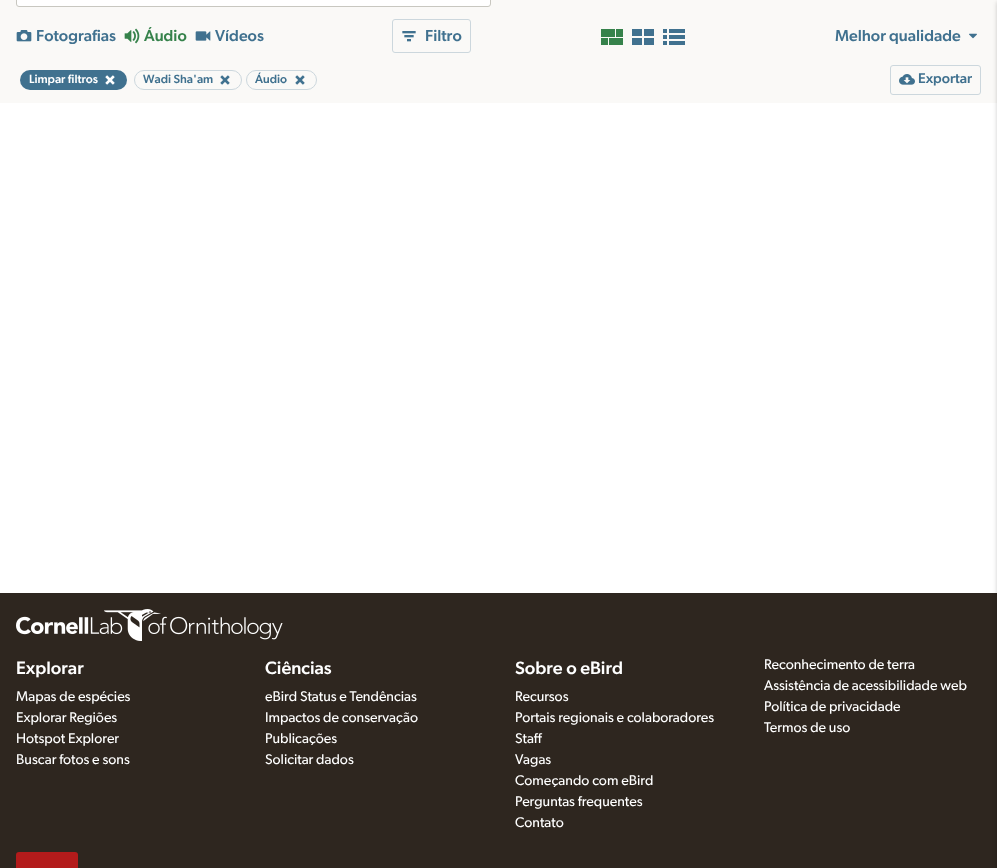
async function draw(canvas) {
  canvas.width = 997;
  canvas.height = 868;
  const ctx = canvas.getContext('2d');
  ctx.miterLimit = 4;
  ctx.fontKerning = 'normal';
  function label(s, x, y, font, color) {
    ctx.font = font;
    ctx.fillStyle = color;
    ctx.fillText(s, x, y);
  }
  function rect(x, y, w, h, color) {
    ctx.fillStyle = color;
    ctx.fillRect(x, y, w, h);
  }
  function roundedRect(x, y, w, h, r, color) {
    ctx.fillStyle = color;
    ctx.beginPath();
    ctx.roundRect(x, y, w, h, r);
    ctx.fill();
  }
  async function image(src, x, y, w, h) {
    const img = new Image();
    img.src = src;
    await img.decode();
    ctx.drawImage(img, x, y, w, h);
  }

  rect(0, 0, 997, 868, '#fff');
  rect(0, 0, 997, 103, '#faf9f7');
  ctx.fillStyle = '#fff';
  ctx.beginPath();
  ctx.roundRect(16.5, -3.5, 474, 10, 2.5);
  ctx.fill();
  ctx.strokeStyle = '#c8c7c0';
  ctx.stroke();
  await image('assets/img1.png', 16, 30, 16, 12);
  label('Fotografias', 36, 41, '500 16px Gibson', '#40718f');
  await image('assets/img2.png', 124, 28, 16, 16);
  label('Áudio', 144, 41, '500 16px Gibson', '#36824b');
  await image('assets/img3.png', 195, 31, 16, 10);
  label('Vídeos', 215, 41, '500 16px Gibson', '#40718f');
  ctx.beginPath();
  ctx.roundRect(392.5, 19.5, 78, 33, 2.5);
  ctx.strokeStyle = '#ccd7dd';
  ctx.stroke();
  await image('assets/img4.png', 402, 31, 14, 11);
  label('Filtro', 425, 41, '500 16px Gibson', '#40718f');
  await image('assets/img5.png', 601, 29, 22, 16);
  await image('assets/img6.png', 632, 29, 22, 16);
  await image('assets/img7.png', 663, 29, 22, 16);
  label('Melhor qualidade', 835, 41, '500 16px Gibson', '#40718f');
  await image('assets/img8.png', 969, 33, 8, 6);
  roundedRect(20, 70, 107, 20, 10, '#40718f');
  label('Limpar filtros', 29, 83, '500 12px Gibson', '#fff');
  await image('assets/img9.png', 105, 75, 10, 10);
  ctx.beginPath();
  ctx.roundRect(134.5, 70.5, 107, 19, 9.5);
  ctx.stroke();
  label('Wadi Sha\'am', 143, 83, '500 12px Gibson', '#40718f');
  await image('assets/img10.png', 220, 75, 10, 10);
  ctx.beginPath();
  ctx.roundRect(246.5, 70.5, 70, 19, 9.5);
  ctx.stroke();
  label('Áudio', 255, 83, '500 12px Gibson', '#40718f');
  await image('assets/img10.png', 295, 75, 10, 10);
  ctx.beginPath();
  ctx.roundRect(890.5, 65.5, 90, 29, 2.5);
  ctx.stroke();
  await image('assets/img11.png', 899, 74, 16, 11);
  label('Exportar', 918, 83, '500 14.1px Gibson', '#40718f');
  rect(0, 593, 997, 275, '#2e261f');
  ctx.fillStyle = '#00000033';
  ctx.filter = 'blur(2px)';
  ctx.beginPath();
  ctx.rect(997, 2, 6, 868);
  ctx.fill();
  ctx.filter = 'none';
  await image('assets/img12.png', 16, 609, 267, 32);
  label('Explorar', 16, 674, '500 18px Gibson', '#fff');
  label('Mapas de espécies', 16, 701, '14.1px Gibson', '#fff');
  label('Explorar Regiões', 16, 722, '14.1px Gibson', '#fff');
  label('Hotspot Explorer', 16, 743, '14.1px Gibson', '#fff');
  label('Buscar fotos e sons', 16, 764, '14.1px Gibson', '#fff');
  label('Ciências', 265, 674, '500 18px Gibson', '#fff');
  label('eBird Status e Tendências', 265, 701, '14.1px Gibson', '#fff');
  label('Impactos de conservação', 265, 722, '14.1px Gibson', '#fff');
  label('Publicações', 265, 743, '14.1px Gibson', '#fff');
  label('Solicitar dados', 265, 764, '14.1px Gibson', '#fff');
  label('Sobre o eBird', 515, 674, '500 18px Gibson', '#fff');
  label('Recursos', 515, 701, '14.1px Gibson', '#fff');
  label('Portais regionais e colaboradores', 515, 722, '14.1px Gibson', '#fff');
  label('Staff', 515, 743, '14.1px Gibson', '#fff');
  label('Vagas', 515, 764, '14.1px Gibson', '#fff');
  label('Começando com eBird', 515, 785, '14.1px Gibson', '#fff');
  label('Perguntas frequentes', 515, 806, '14.1px Gibson', '#fff');
  label('Contato', 515, 827, '14.1px Gibson', '#fff');
  label('Reconhecimento de terra', 764, 669, '14.1px Gibson', '#fff');
  label('Assistência de acessibilidade web', 764, 690, '14.1px Gibson', '#fff');
  label('Política de privacidade', 764, 711, '14.1px Gibson', '#fff');
  label('Termos de uso', 764, 732, '14.1px Gibson', '#fff');
  roundedRect(16, 852, 62, 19, 3, '#b31b1b');
}

draw(document.querySelector('canvas'));
